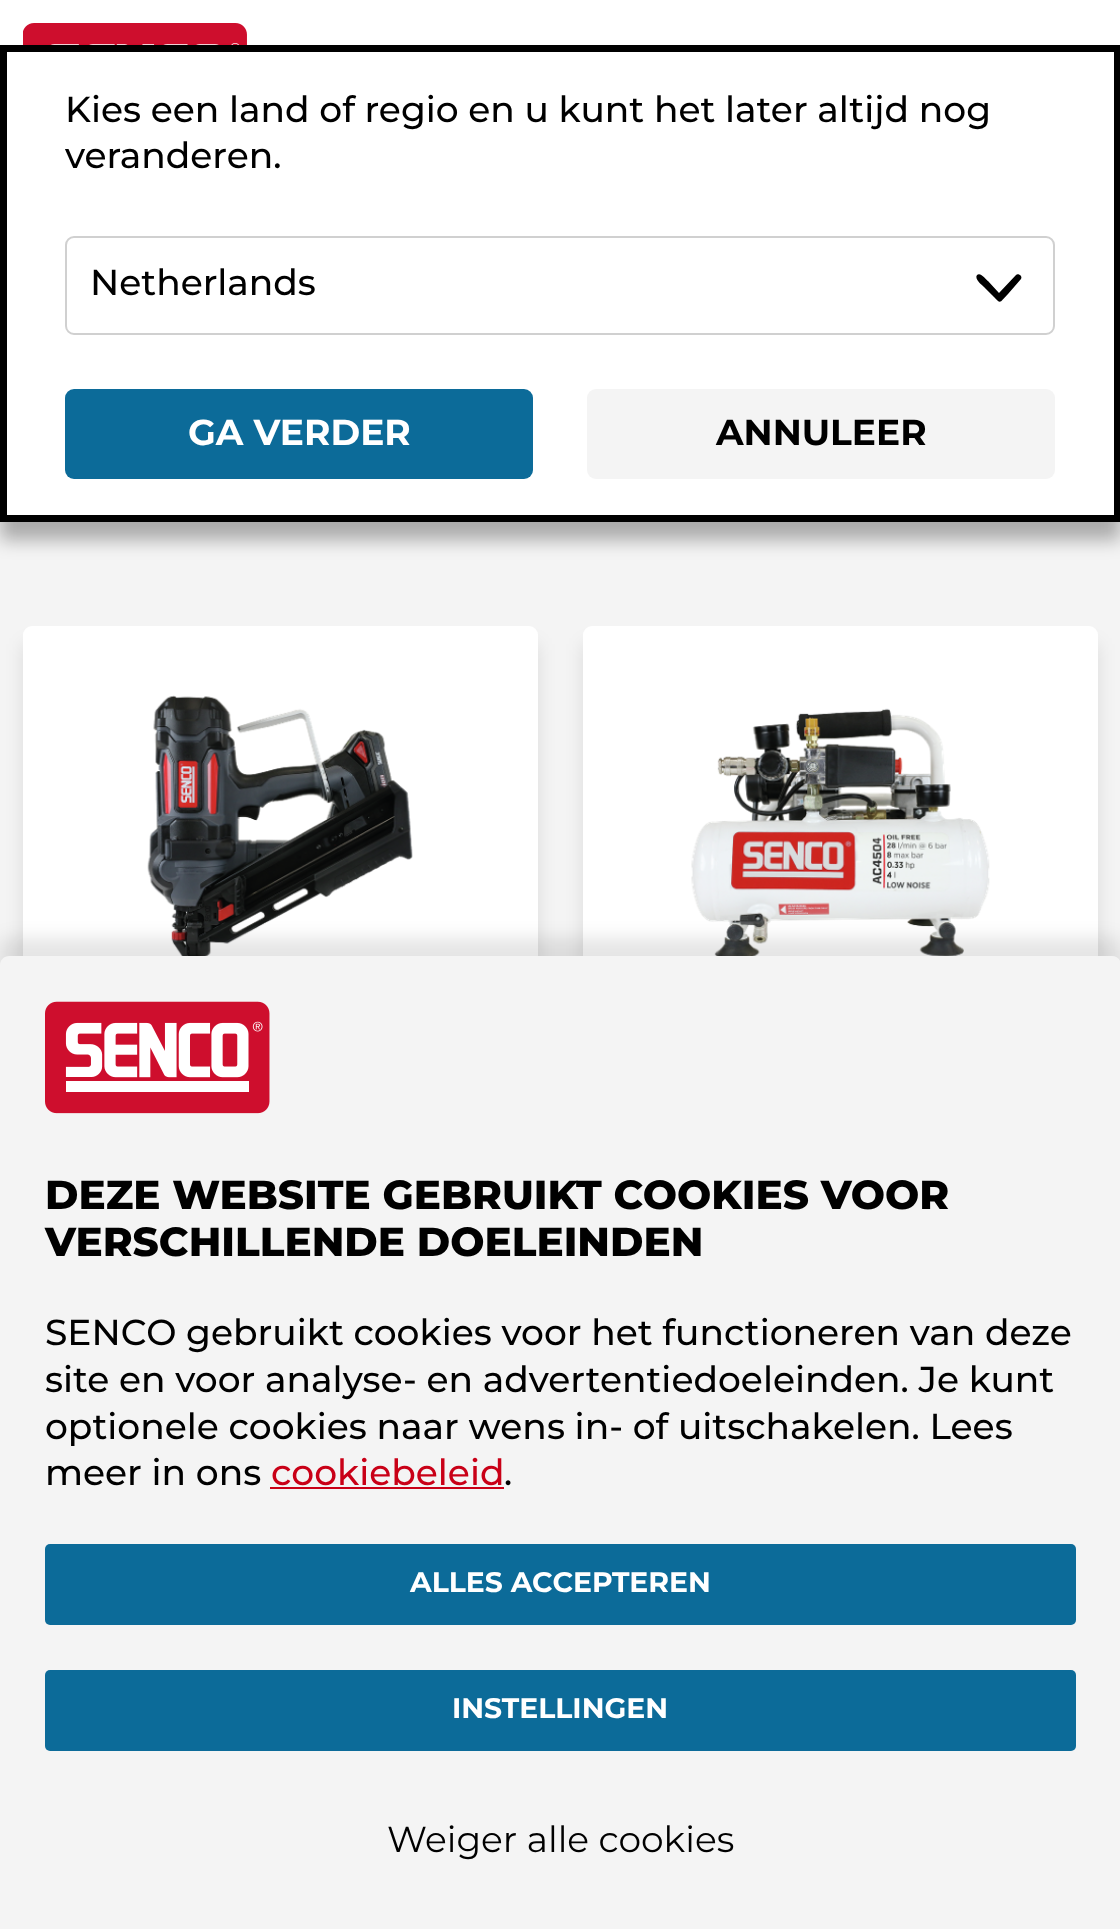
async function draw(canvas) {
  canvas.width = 1120;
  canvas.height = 1929;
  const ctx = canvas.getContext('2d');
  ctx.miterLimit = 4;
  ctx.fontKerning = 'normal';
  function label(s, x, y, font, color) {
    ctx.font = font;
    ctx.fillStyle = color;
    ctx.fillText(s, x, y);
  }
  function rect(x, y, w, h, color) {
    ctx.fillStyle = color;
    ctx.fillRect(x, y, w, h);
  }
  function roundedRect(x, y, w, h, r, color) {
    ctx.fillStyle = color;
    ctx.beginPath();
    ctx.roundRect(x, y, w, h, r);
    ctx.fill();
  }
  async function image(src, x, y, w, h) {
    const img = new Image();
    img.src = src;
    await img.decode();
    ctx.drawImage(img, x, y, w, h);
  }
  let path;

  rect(0, 0, 1120, 1929, '#f4f4f4');
  rect(0, 0, 1120, 45, '#fff');
  await image('assets/img1.png', 23, 23, 224, 22);
  ctx.fillStyle = '#0000004d';
  ctx.filter = 'blur(9px)';
  ctx.beginPath();
  ctx.rect(0, 63, 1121, 477);
  ctx.fill();
  ctx.filter = 'none';
  ctx.fillStyle = '#fff';
  ctx.beginPath();
  ctx.rect(3.5, 48.5, 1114, 470);
  ctx.fill();
  ctx.strokeStyle = '#000';
  ctx.lineWidth = 7;
  ctx.stroke();
  label('Kies een land of regio en u kunt het later altijd nog', 65, 122, '500 36px Montserrat', '#000');
  label('veranderen.', 65, 168, '500 36px Montserrat', '#000');
  ctx.beginPath();
  ctx.roundRect(66, 237, 988, 97, 8);
  ctx.strokeStyle = '#d0d0d0';
  ctx.lineWidth = 2;
  ctx.stroke();
  label('Netherlands', 90, 295, '500 36px Montserrat', '#000');
  path = new Path2D('M977 275C981 272 986 280 988 281L999 293L1016 275C1018 273 1023 276 1021 279L1008 294C1000 302 1001 305 994 297L984 287C982 285 974 279 977 275Z');
  ctx.fill(path, 'evenodd');
  roundedRect(65, 389, 468, 90, 9, '#0c6b99');
  label('GA VERDER', 188, 445, 'bold 36px Montserrat', '#fff');
  roundedRect(587, 389, 468, 90, 9, '#f4f4f4');
  label('ANNULEER', 716, 445, 'bold 36px Montserrat', '#000');
  ctx.fillStyle = '#0000001a';
  ctx.filter = 'blur(9px)';
  ctx.beginPath();
  ctx.rect(23, 644, 515, 479);
  ctx.fill();
  ctx.filter = 'none';
  roundedRect(23, 626, 515, 479, 9, '#fff');
  await image('assets/img2.png', 147, 695, 266, 261);
  ctx.fillStyle = '#0000001a';
  ctx.filter = 'blur(9px)';
  ctx.beginPath();
  ctx.rect(583, 644, 515, 479);
  ctx.fill();
  ctx.filter = 'none';
  roundedRect(583, 626, 515, 479, 9, '#fff');
  await image('assets/img3.png', 691, 708, 299, 248);
  ctx.fillStyle = '#0000001a';
  ctx.filter = 'blur(9px)';
  ctx.beginPath();
  ctx.roundRect(0, 938, 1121, 975, 9);
  ctx.fill();
  ctx.filter = 'none';
  ctx.fillStyle = '#f4f4f4';
  path = new Path2D('M9 956H1112C1117 956 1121 960 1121 965V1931H0V965C0 960 4 956 9 956Z');
  ctx.fill(path);
  await image('assets/img4.png', 45, 1001, 225, 113);
  label('DEZE WEBSITE GEBRUIKT COOKIES VOOR', 45, 1209, '800 40.5px Montserrat', '#000');
  label('VERSCHILLENDE DOELEINDEN', 45, 1256, '800 40.5px Montserrat', '#000');
  label('SENCO gebruikt cookies voor het functioneren van deze', 45, 1345, '500 36px Montserrat', '#000');
  label('site en voor analyse- en advertentiedoeleinden. Je kunt', 45, 1392, '500 36px Montserrat', '#000');
  label('optionele cookies naar wens in- of uitschakelen. Lees', 45, 1439, '500 36px Montserrat', '#000');
  label('meer in ons', 45, 1485, '500 36px Montserrat', '#000');
  label('cookiebeleid', 271, 1485, '500 36px Montserrat', '#c90017');
  rect(270, 1487, 234, 2, '#c90017');
  label('.', 504, 1485, '500 36px Montserrat', '#000');
  roundedRect(45, 1544, 1031, 81, 5, '#0c6b99');
  label('ALLES ACCEPTEREN', 410, 1592, 'bold 28.25px Montserrat', '#fff');
  roundedRect(45, 1670, 1031, 81, 5, '#0c6b99');
  label('INSTELLINGEN', 452, 1718, 'bold 28.25px Montserrat', '#fff');
  label('Weiger alle cookies', 387, 1852, '36px Montserrat', '#000');
}

draw(document.querySelector('canvas'));
